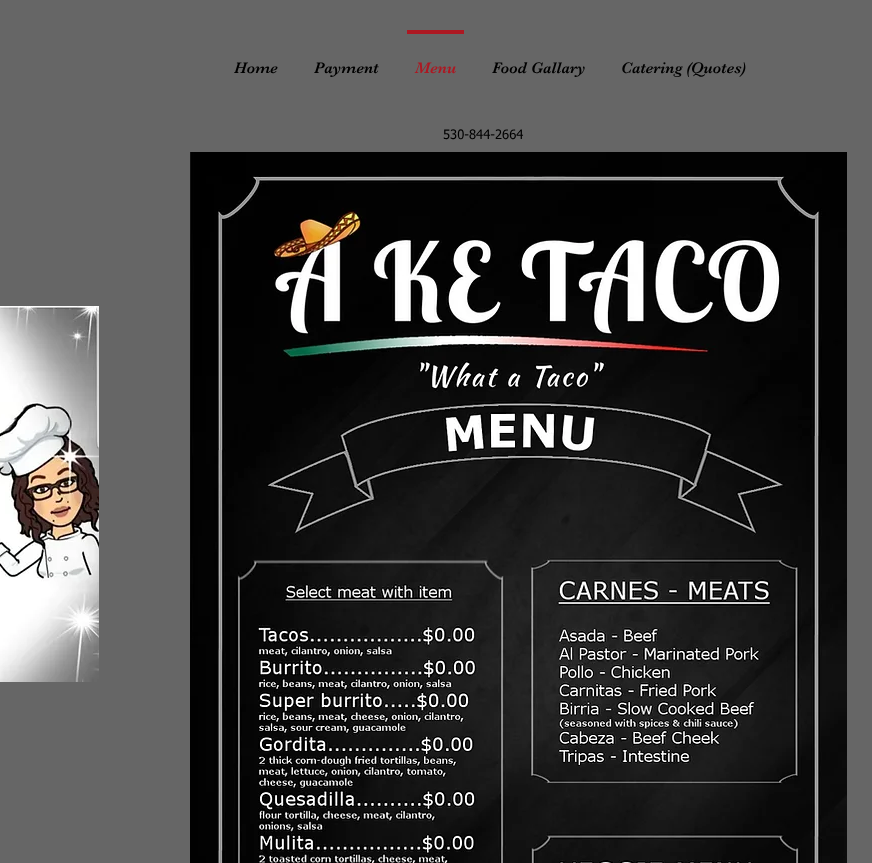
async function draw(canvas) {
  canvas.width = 872;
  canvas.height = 863;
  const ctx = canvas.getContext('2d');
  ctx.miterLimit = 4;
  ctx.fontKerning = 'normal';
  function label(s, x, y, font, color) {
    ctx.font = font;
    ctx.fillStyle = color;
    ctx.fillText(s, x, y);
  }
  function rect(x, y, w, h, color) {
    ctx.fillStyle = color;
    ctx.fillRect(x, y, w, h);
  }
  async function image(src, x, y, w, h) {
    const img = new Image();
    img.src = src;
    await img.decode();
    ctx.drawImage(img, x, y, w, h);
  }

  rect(0, 0, 872, 863, '#666');
  label('Home', 234, 73, '16px "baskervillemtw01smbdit"', '#000');
  label('Payment', 314, 73, '16px "baskervillemtw01smbdit"', '#000');
  rect(407, 30, 57, 4, '#ad1822');
  label('Menu', 415, 73, '16px "baskervillemtw01smbdit"', '#ad1822');
  label('Food Gallary', 492, 73, '16px "baskervillemtw01smbdit"', '#000');
  label('Catering (Quotes)', 621, 73, '16px "baskervillemtw01smbdit"', '#000');
  label('530-844-2664', 443, 139, '13px tahoma', '#000');
  await image('assets/img1.png', 0, 306, 99, 376);
  await image('assets/img2.png', 190, 152, 657, 711);
}

draw(document.querySelector('canvas'));
